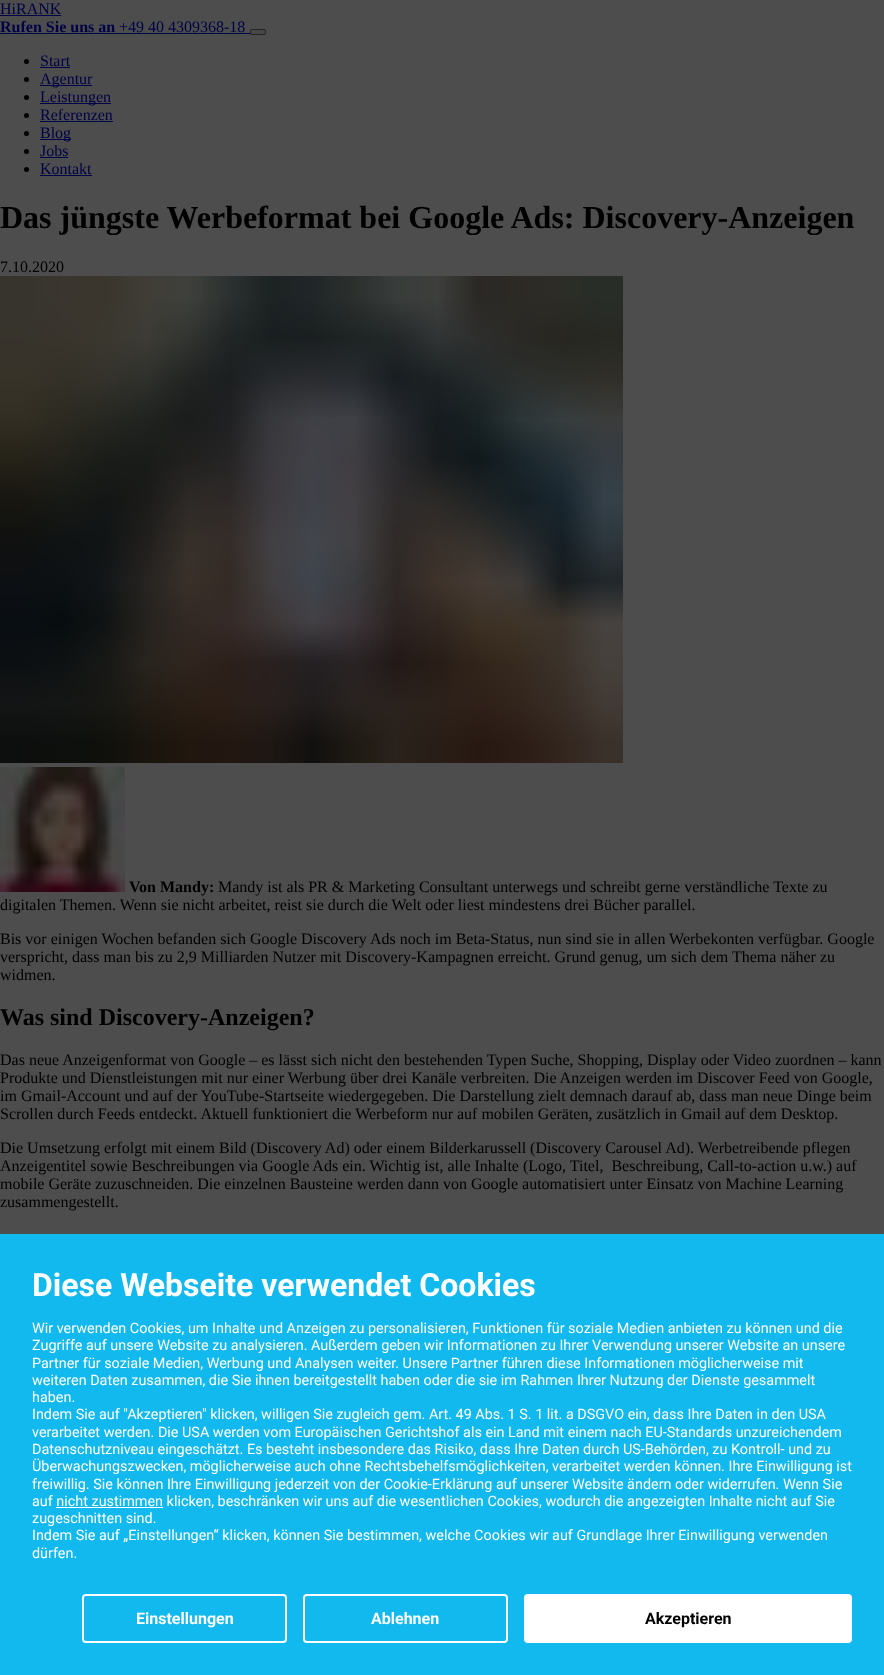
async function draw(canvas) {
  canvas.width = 884;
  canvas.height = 1675;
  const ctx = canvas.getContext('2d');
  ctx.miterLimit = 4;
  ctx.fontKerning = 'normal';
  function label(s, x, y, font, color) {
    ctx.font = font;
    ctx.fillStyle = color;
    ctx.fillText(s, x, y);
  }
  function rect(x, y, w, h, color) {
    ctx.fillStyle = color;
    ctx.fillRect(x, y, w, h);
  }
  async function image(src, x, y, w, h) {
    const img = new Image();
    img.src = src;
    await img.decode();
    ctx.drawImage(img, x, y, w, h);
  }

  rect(0, 0, 884, 1675, '#4d4d4d');
  label('HiRANK', 0, 14, '16px Liberation Serif', '#000047');
  rect(0, 15, 61, 1, '#000047');
  label('Rufen Sie uns an', 0, 32, 'bold 16px Liberation Serif', '#000047');
  label('+49 40 4309368-18', 119, 32, '16px Liberation Serif', '#000047');
  rect(0, 33, 250, 1, '#000047');
  ctx.fillStyle = '#484848';
  ctx.beginPath();
  ctx.roundRect(250.5, 29.5, 15, 5, 1.5);
  ctx.fill();
  ctx.strokeStyle = '#232323';
  ctx.stroke();
  ctx.fillStyle = '#000';
  ctx.beginPath();
  ctx.arc(26.5, 61.5, 2.5, 0, 2 * Math.PI);
  ctx.fill();
  label('Start', 40, 66, '16px Liberation Serif', '#000047');
  rect(40, 67, 30, 1, '#000047');
  ctx.fillStyle = '#000';
  ctx.beginPath();
  ctx.arc(26.5, 79.5, 2.5, 0, 2 * Math.PI);
  ctx.fill();
  rect(40, 85, 52, 1, '#000047');
  label('Agentur', 40, 84, '16px Liberation Serif', '#000047');
  ctx.fillStyle = '#000';
  ctx.beginPath();
  ctx.arc(26.5, 97.5, 2.5, 0, 2 * Math.PI);
  ctx.fill();
  rect(40, 103, 71, 1, '#000047');
  label('Leistungen', 40, 102, '16px Liberation Serif', '#000047');
  ctx.fillStyle = '#000';
  ctx.beginPath();
  ctx.arc(26.5, 115.5, 2.5, 0, 2 * Math.PI);
  ctx.fill();
  label('Referenzen', 40, 120, '16px Liberation Serif', '#000047');
  rect(40, 121, 73, 1, '#000047');
  ctx.fillStyle = '#000';
  ctx.beginPath();
  ctx.arc(26.5, 133.5, 2.5, 0, 2 * Math.PI);
  ctx.fill();
  rect(40, 139, 31, 1, '#000047');
  label('Blog', 40, 138, '16px Liberation Serif', '#000047');
  ctx.fillStyle = '#000';
  ctx.beginPath();
  ctx.arc(26.5, 151.5, 2.5, 0, 2 * Math.PI);
  ctx.fill();
  label('Jobs', 40, 156, '16px Liberation Serif', '#000047');
  rect(40, 157, 28, 1, '#000047');
  ctx.fillStyle = '#000';
  ctx.beginPath();
  ctx.arc(26.5, 169.5, 2.5, 0, 2 * Math.PI);
  ctx.fill();
  label('Kontakt', 40, 174, '16px Liberation Serif', '#000047');
  rect(40, 175, 52, 1, '#000047');
  label('Das jüngste Werbeformat bei Google Ads: Discovery-Anzeigen', 0, 228, 'bold 32px Liberation Serif', '#000');
  label('7.10.2020', 0, 272, '16px Liberation Serif', '#000');
  await image('assets/img1.png', 0, 276, 623, 487);
  await image('assets/img2.png', 0, 767, 125, 125);
  label('Von Mandy:', 129, 892, 'bold 16px Liberation Serif', '#000');
  label('Mandy ist als PR & Marketing Consultant unterwegs und schreibt gerne verständliche Texte zu', 218, 892, '16px Liberation Serif', '#000');
  label('digitalen Themen. Wenn sie nicht arbeitet, reist sie durch die Welt oder liest mindestens drei Bücher parallel.', 0, 910, '16px Liberation Serif', '#000');
  label('Bis vor einigen Wochen befanden sich Google Discovery Ads noch im Beta-Status, nun sind sie in allen Werbekonten verfügbar. Google', 0, 944, '16px Liberation Serif', '#000');
  label('verspricht, dass man bis zu 2,9 Milliarden Nutzer mit Discovery-Kampagnen erreicht. Grund genug, um sich dem Thema näher zu', 0, 962, '16px Liberation Serif', '#000');
  label('widmen.', 0, 980, '16px Liberation Serif', '#000');
  label('Was sind Discovery-Anzeigen?', 0, 1025, 'bold 24px Liberation Serif', '#000');
  label('Das neue Anzeigenformat von Google – es lässt sich nicht den bestehenden Typen Suche, Shopping, Display oder Video zuordnen – kann', 0, 1065, '16px Liberation Serif', '#000');
  label('Produkte und Dienstleistungen mit nur einer Werbung über drei Kanäle verbreiten. Die Anzeigen werden im Discover Feed von Google,', 0, 1083, '16px Liberation Serif', '#000');
  label('im Gmail-Account und auf der YouTube-Startseite wiedergegeben. Die Darstellung zielt demnach darauf ab, dass man neue Dinge beim', 0, 1101, '16px Liberation Serif', '#000');
  label('Scrollen durch Feeds entdeckt. Aktuell funktioniert die Werbeform nur auf mobilen Geräten, zusätzlich in Gmail auf dem Desktop.', 0, 1119, '16px Liberation Serif', '#000');
  label('Die Umsetzung erfolgt mit einem Bild (Discovery Ad) oder einem Bilderkarussell (Discovery Carousel Ad). Werbetreibende pflegen', 0, 1153, '16px Liberation Serif', '#000');
  label('Anzeigentitel sowie Beschreibungen via Google Ads ein. Wichtig ist, alle Inhalte (Logo, Titel,  Beschreibung, Call-to-action u.w.) auf', 0, 1171, '16px Liberation Serif', '#000');
  label('mobile Geräte zuzuschneiden. Die einzelnen Bausteine werden dann von Google automatisiert unter Einsatz von Machine Learning', 0, 1189, '16px Liberation Serif', '#000');
  label('zusammengestellt.', 0, 1207, '16px Liberation Serif', '#000');
  rect(0, 1234, 884, 441, '#12b9ee');
  label('Diese Webseite verwendet Cookies', 32, 1296, 'bold 32px Roboto', '#fff');
  label('Wir verwenden Cookies, um Inhalte und Anzeigen zu personalisieren, Funktionen für soziale Medien anbieten zu können und die', 32, 1333, '14.4px Roboto', '#fff');
  label('Zugriffe auf unsere Website zu analysieren. Außerdem geben wir Informationen zu Ihrer Verwendung unserer Website an unsere', 32, 1350, '14.4px Roboto', '#fff');
  label('Partner für soziale Medien, Werbung und Analysen weiter. Unsere Partner führen diese Informationen möglicherweise mit', 32, 1368, '14.4px Roboto', '#fff');
  label('weiteren Daten zusammen, die Sie ihnen bereitgestellt haben oder die sie im Rahmen Ihrer Nutzung der Dienste gesammelt', 32, 1385, '14.4px Roboto', '#fff');
  label('haben.', 32, 1402, '14.4px Roboto', '#fff');
  label('Indem Sie auf "Akzeptieren" klicken, willigen Sie zugleich gem. Art. 49 Abs. 1 S. 1 lit. a DSGVO ein, dass Ihre Daten in den USA', 32, 1419, '14.4px Roboto', '#fff');
  label('verarbeitet werden. Die USA werden vom Europäischen Gerichtshof als ein Land mit einem nach EU-Standards unzureichendem', 32, 1437, '14.4px Roboto', '#fff');
  label('Datenschutzniveau eingeschätzt. Es besteht insbesondere das Risiko, dass Ihre Daten durch US-Behörden, zu Kontroll- und zu', 32, 1454, '14.4px Roboto', '#fff');
  label('Überwachungszwecken, möglicherweise auch ohne Rechtsbehelfsmöglichkeiten, verarbeitet werden können. Ihre Einwilligung ist', 32, 1471, '14.4px Roboto', '#fff');
  label('freiwillig. Sie können Ihre Einwilligung jederzeit von der Cookie-Erklärung auf unserer Website ändern oder widerrufen. Wenn Sie', 32, 1489, '14.4px Roboto', '#fff');
  label('auf nicht zustimmen klicken, beschränken wir uns auf die wesentlichen Cookies, wodurch die angezeigten Inhalte nicht auf Sie', 32, 1506, '14.4px Roboto', '#fff');
  rect(56, 1507, 107, 1, '#fff');
  label('zugeschnitten sind.', 32, 1523, '14.4px Roboto', '#fff');
  label('Indem Sie auf „Einstellungen“ klicken, können Sie bestimmen, welche Cookies wir auf Grundlage Ihrer Einwilligung verwenden', 32, 1540, '14.4px Roboto', '#fff');
  label('dürfen.', 32, 1558, '14.4px Roboto', '#fff');
  ctx.beginPath();
  ctx.roundRect(83, 1595, 203, 47, 3);
  ctx.strokeStyle = '#fff';
  ctx.lineWidth = 2;
  ctx.stroke();
  label('Einstellungen', 136, 1624, 'bold 16px Roboto', '#fff');
  ctx.beginPath();
  ctx.roundRect(304, 1595, 203, 47, 3);
  ctx.stroke();
  label('Ablehnen', 371, 1624, 'bold 16px Roboto', '#fff');
  ctx.beginPath();
  ctx.roundRect(525, 1595, 326, 47, 3);
  ctx.fill();
  ctx.stroke();
  label('Akzeptieren', 645, 1624, 'bold 16px Roboto', '#000');
}

draw(document.querySelector('canvas'));
